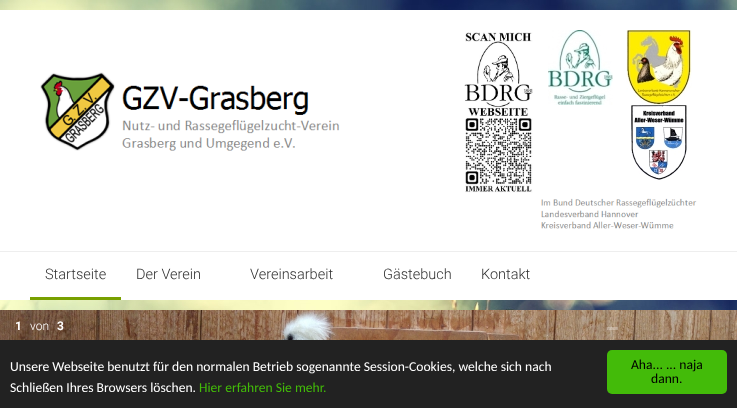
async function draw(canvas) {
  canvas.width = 737;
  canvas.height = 408;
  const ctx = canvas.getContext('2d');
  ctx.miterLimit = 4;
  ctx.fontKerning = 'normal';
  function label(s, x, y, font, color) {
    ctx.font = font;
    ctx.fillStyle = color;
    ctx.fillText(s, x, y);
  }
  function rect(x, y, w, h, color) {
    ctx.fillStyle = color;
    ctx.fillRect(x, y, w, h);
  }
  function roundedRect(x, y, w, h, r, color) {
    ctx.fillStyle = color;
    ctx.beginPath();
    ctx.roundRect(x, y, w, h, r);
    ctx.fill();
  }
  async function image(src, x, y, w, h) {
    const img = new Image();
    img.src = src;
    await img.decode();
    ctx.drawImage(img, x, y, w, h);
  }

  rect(0, 0, 737, 408, '#fff');
  await image('assets/img1.png', 0, 0, 737, 310);
  rect(0, 10, 737, 290, '#fff');
  await image('assets/img2.png', 40, 72, 300, 79);
  await image('assets/img3.png', 464, 32, 69, 161);
  await image('assets/img4.png', 548, 30, 65, 75);
  await image('assets/img5.png', 626, 30, 66, 75);
  await image('assets/img6.png', 631, 105, 56, 75);
  await image('assets/img7.png', 541, 198, 156, 31);
  rect(0, 251, 737, 1, '#eee');
  rect(30, 297, 91, 3, '#78a000');
  label('Startseite', 45, 279, '300 14.5px Roboto', '#313131');
  label('Der Verein', 136, 279, '300 14.5px Roboto', '#313131');
  label('Vereinsarbeit', 250, 279, '300 14.5px Roboto', '#313131');
  label('Gästebuch', 383, 279, '300 14.5px Roboto', '#313131');
  label('Kontakt', 481, 279, '300 14.5px Roboto', '#313131');
  await image('assets/img8.png', 0, 310, 737, 30);
  label('1', 15, 330, 'bold 12px Roboto', '#fff');
  label('von', 30, 330, '300 12px Roboto', '#fff');
  label('3', 57, 330, 'bold 12px Roboto', '#fff');
  rect(607, 327, 11, 3, '#ffffff4d');
  rect(0, 340, 737, 68, '#222');
  label('Unsere Webseite benutzt für den normalen Betrieb sogenannte Session-Cookies, welche sich nach', 10, 371, '13.6px Carlito', '#fff');
  label('Schließen Ihres Browsers löschen.', 10, 392, '13.6px Carlito', '#fff');
  label('Hier erfahren Sie mehr.', 199, 392, '13.6px Carlito', '#43bb09');
  roundedRect(607, 350, 120, 44, 5, '#43bb09');
  label('Aha... ... naja', 631, 369, '13.6px Carlito', '#000');
  label('dann.', 651, 383, '13.6px Carlito', '#000');
}

draw(document.querySelector('canvas'));
